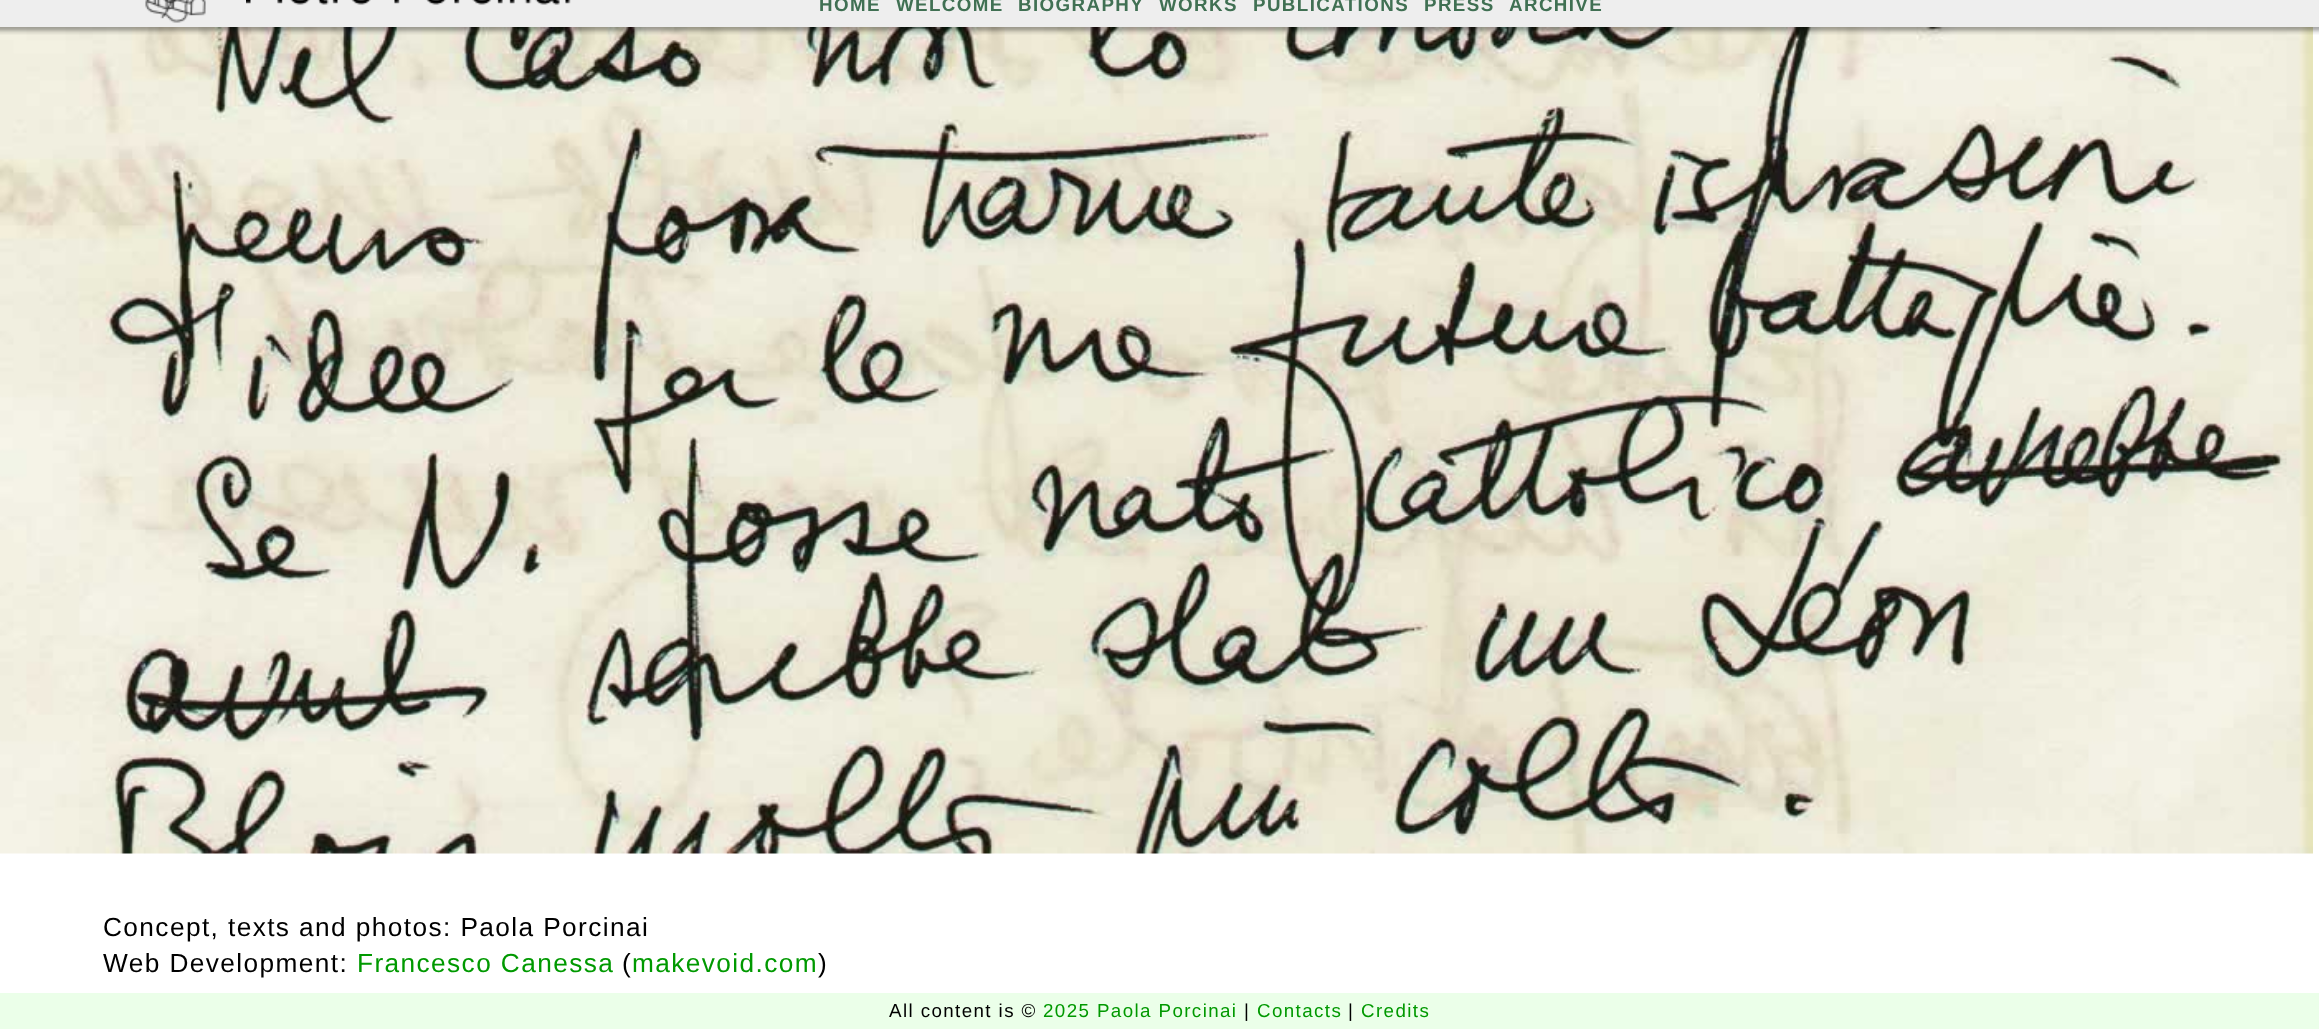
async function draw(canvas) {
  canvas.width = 2319;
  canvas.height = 1029;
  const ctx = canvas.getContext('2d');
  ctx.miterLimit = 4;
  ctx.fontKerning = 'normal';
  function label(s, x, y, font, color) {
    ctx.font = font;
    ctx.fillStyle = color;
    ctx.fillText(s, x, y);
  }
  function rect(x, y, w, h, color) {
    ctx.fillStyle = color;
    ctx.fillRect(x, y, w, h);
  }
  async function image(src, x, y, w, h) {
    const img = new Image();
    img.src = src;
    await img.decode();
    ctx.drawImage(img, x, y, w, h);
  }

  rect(0, 0, 2319, 1029, '#fff');
  rect(0, 0, 2319, 27, '#eee');
  await image('assets/img1.png', 145, 0, 61, 23);
  await image('assets/img2.png', 246, 0, 325, 5);
  ctx.letterSpacing = '1.4px';
  label('HOME', 819, 11, 'bold 18.75px Liberation Sans', '#407053');
  label('WELCOME', 896, 11, 'bold 18.75px Liberation Sans', '#407053');
  label('BIOGRAPHY', 1018, 11, 'bold 18.75px Liberation Sans', '#407053');
  label('WORKS', 1159, 11, 'bold 18.75px Liberation Sans', '#407053');
  label('PUBLICATIONS', 1253, 11, 'bold 18.75px Liberation Sans', '#407053');
  label('PRESS', 1424, 11, 'bold 18.75px Liberation Sans', '#407053');
  label('ARCHIVE', 1509, 11, 'bold 18.75px Liberation Sans', '#407053');
  await image('assets/img4.png', 0, 27, 2313, 827);
  await image('assets/img3.png', 0, 27, 2319, 8);
  label('Concept, texts and photos: Paola Porcinai', 103, 936, '26.25px Liberation Sans', '#000');
  label('Web Development:', 103, 972, '26.25px Liberation Sans', '#000');
  label('Francesco Canessa', 357, 972, '26.25px Liberation Sans', '#090');
  label('(', 622, 972, '26.25px Liberation Sans', '#000');
  label('makevoid.com', 632, 972, '26.25px Liberation Sans', '#090');
  label(')', 818, 972, '26.25px Liberation Sans', '#000');
  rect(0, 993, 2319, 36, '#ebffe9');
  label('All content is ©', 889, 1017, '18.75px Liberation Sans', '#000');
  label('2025 Paola Porcinai', 1043, 1017, '18.75px Liberation Sans', '#090');
  label('|', 1244, 1017, '18.75px Liberation Sans', '#000');
  label('Contacts', 1257, 1017, '18.75px Liberation Sans', '#090');
  label('|', 1348, 1017, '18.75px Liberation Sans', '#000');
  label('Credits', 1361, 1017, '18.75px Liberation Sans', '#090');
}

draw(document.querySelector('canvas'));
